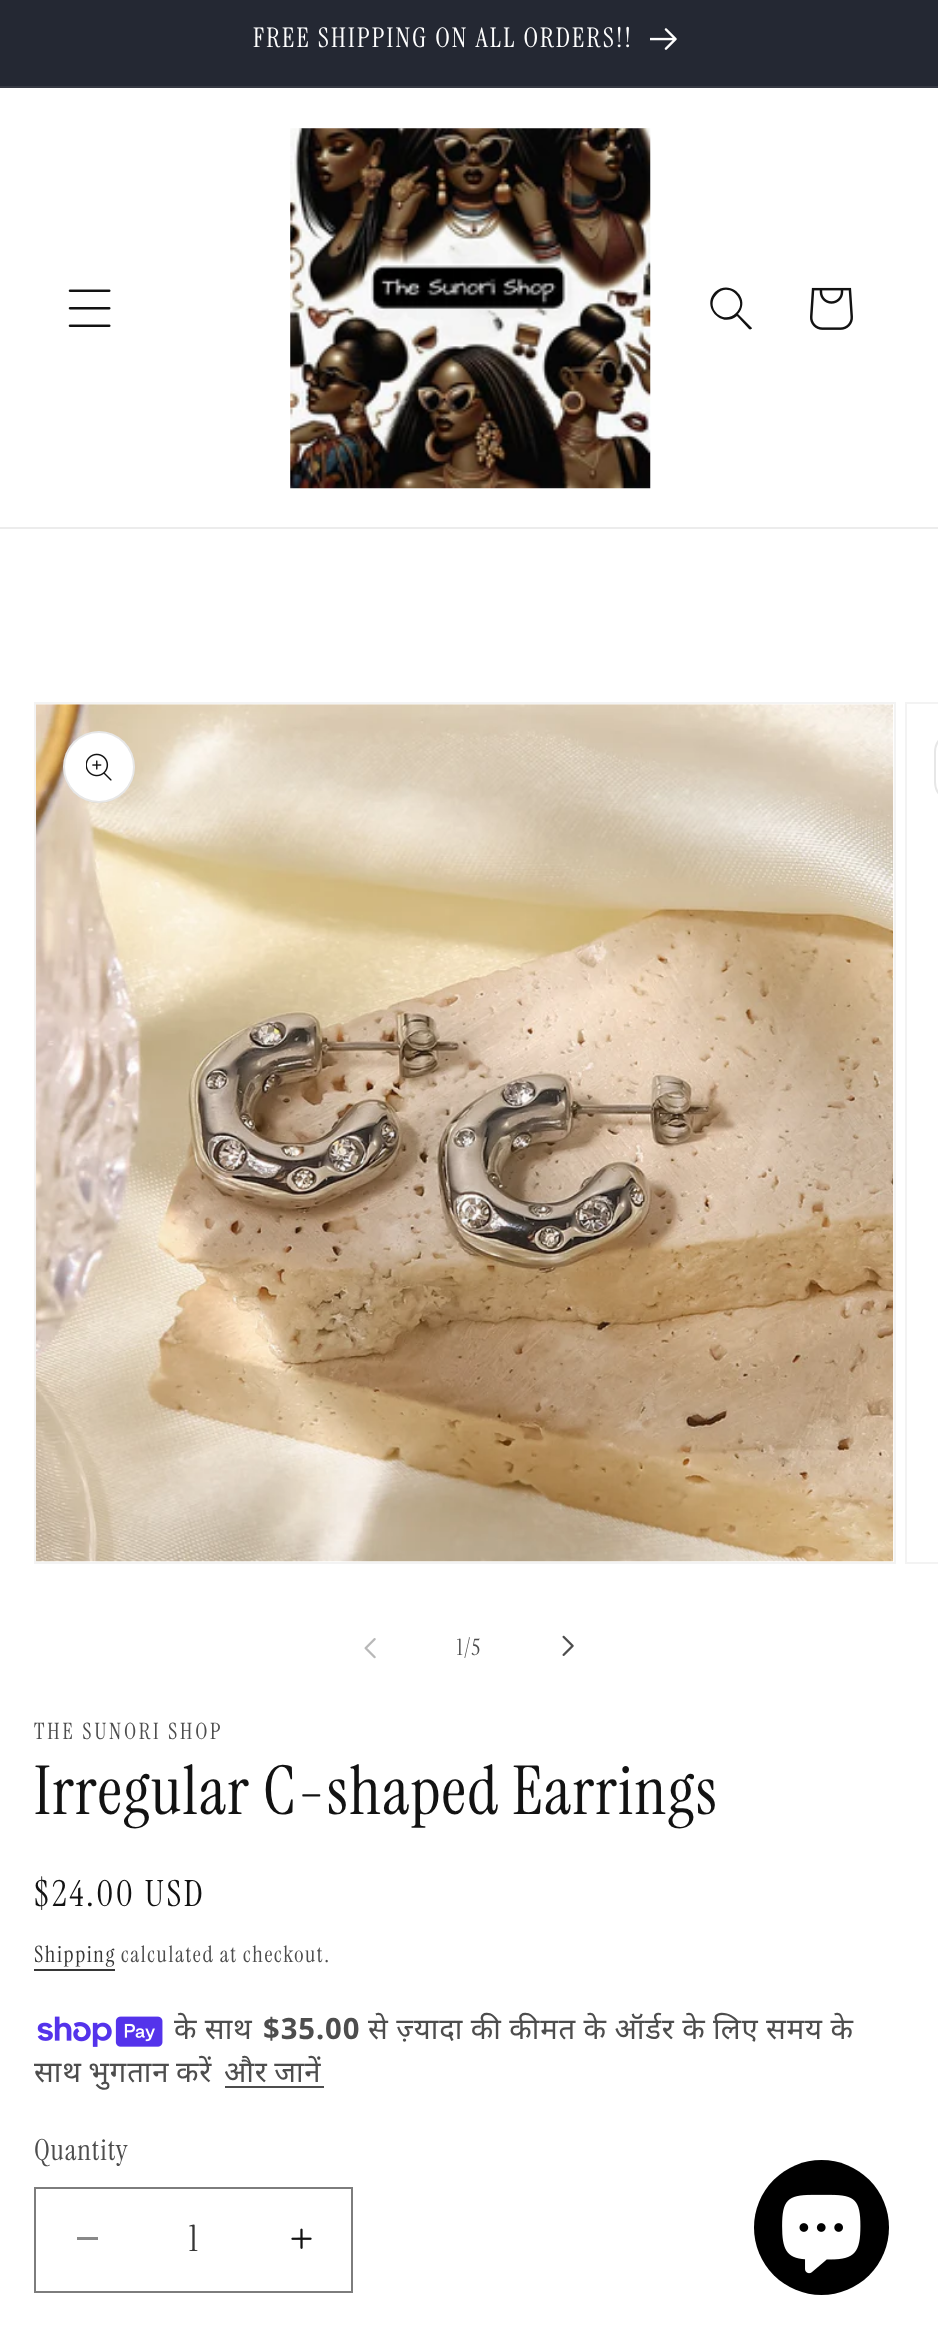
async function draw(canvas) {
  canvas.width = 938;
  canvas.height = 2341;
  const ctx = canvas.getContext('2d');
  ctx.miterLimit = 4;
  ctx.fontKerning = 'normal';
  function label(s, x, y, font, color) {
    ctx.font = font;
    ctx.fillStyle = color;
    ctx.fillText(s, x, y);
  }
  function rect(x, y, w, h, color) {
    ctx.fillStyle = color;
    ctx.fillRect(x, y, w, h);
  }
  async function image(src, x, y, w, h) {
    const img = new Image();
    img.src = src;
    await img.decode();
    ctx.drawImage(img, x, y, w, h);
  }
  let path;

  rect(0, 0, 938, 2341, '#fff');
  rect(0, 0, 938, 86, '#242833');
  rect(0, 86, 938, 2, '#363943');
  ctx.letterSpacing = '2.25px';
  label('FREE SHIPPING ON ALL ORDERS!!', 253, 47, '27px Instrument Serif', '#fff');
  await image('assets/img1.png', 650, 28, 27, 22);
  rect(0, 527, 938, 2, '#ececec');
  await image('assets/img2.png', 68, 289, 43, 38);
  await image('assets/img3.png', 290, 128, 361, 361);
  ctx.fillStyle = '#121212';
  path = new Path2D('M736 313C723 326 704 307 717 294C729 281 749 301 736 313M737 316C721 329 701 306 715 292C730 278 752 299 738 314L752 328C752 329 750 330 749 329Z');
  ctx.fill(path, 'evenodd');
  await image('assets/img4.png', 810, 287, 43, 43);
  ctx.strokeStyle = '#f3f3f3';
  ctx.lineWidth = 2;
  ctx.strokeRect(35, 703, 860, 860);
  await image('assets/img5.png', 36, 704, 858, 858);
  ctx.fillStyle = '#fff';
  ctx.beginPath();
  ctx.arc(99, 767, 36, 0, 2 * Math.PI);
  ctx.fill();
  ctx.beginPath();
  ctx.arc(99, 767, 35, 0, 2 * Math.PI);
  ctx.strokeStyle = '#1212121a';
  ctx.stroke();
  await image('assets/img6.png', 86, 753, 26, 28);
  ctx.strokeStyle = '#f3f3f3';
  ctx.strokeRect(906, 703, 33, 860);
  ctx.beginPath();
  ctx.roundRect(935, 732, 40, 70, 35);
  ctx.strokeStyle = '#e7e7e7';
  ctx.stroke();
  await image('assets/img7.png', 364, 1638, 12, 21);
  ctx.letterSpacing = '1.6px';
  label('1/5', 457, 1655, '22.5px Instrument Serif', '#4d4d4d');
  await image('assets/img8.png', 562, 1635, 12, 21);
  ctx.letterSpacing = '2.9px';
  label('THE SUNORI SHOP', 34, 1739, '22.5px Instrument Serif', '#4d4d4d');
  ctx.letterSpacing = '1.35px';
  label('Irregular C-shaped Earrings', 34, 1814, '67.5px Instrument Serif', '#121212');
  ctx.letterSpacing = '2.9px';
  label('$24.00 USD', 34, 1906, '36px Instrument Serif', '#121212');
  ctx.letterSpacing = '1.6px';
  label('Shipping', 34, 1962, '22.5px Instrument Serif', '#363636');
  rect(34, 1969, 81, 2, '#363636');
  label('calculated at checkout.', 121, 1962, '22.5px Instrument Serif', '#4d4d4d');
  ctx.letterSpacing = '0.9px';
  ctx.wordSpacing = '-1px';
  label('के साथ', 174, 2039, '29.25px Noto Sans', '#4d4d4d');
  await image('assets/img9.png', 37, 2016, 126, 31);
  ctx.wordSpacing = '0px';
  label('$35.00', 263, 2039, 'bold 29.25px Noto Sans', '#4d4d4d');
  ctx.wordSpacing = '-1px';
  label('से ज़्यादा की कीमत के ऑर्डर के लिए समय के', 368, 2039, '29.25px Noto Sans', '#4d4d4d');
  ctx.wordSpacing = '-2px';
  label('साथ भुगतान करें', 34, 2082, '29.25px Noto Sans', '#4d4d4d');
  label('और जानें', 224, 2082, '29.25px Noto Sans', '#4d4d4d');
  rect(225, 2086, 99, 2, '#4d4d4d');
  ctx.wordSpacing = '0px';
  label('Quantity', 34, 2160, '29.25px Instrument Serif', '#4d4d4d');
  rect(77, 2237, 21, 3, '#898989');
  await image('assets/img10.png', 291, 2228, 21, 21);
  ctx.strokeStyle = '#7d7d7d';
  ctx.strokeRect(35, 2188, 317, 104);
  ctx.letterSpacing = '0px';
  label('1', 189, 2251, '36px Instrument Serif', '#363636');
  ctx.fillStyle = '#000';
  ctx.beginPath();
  ctx.arc(821.5, 2227.5, 67.5, 0, 2 * Math.PI);
  ctx.fill();
  await image('assets/img11.png', 782, 2194, 79, 80);
}

draw(document.querySelector('canvas'));
